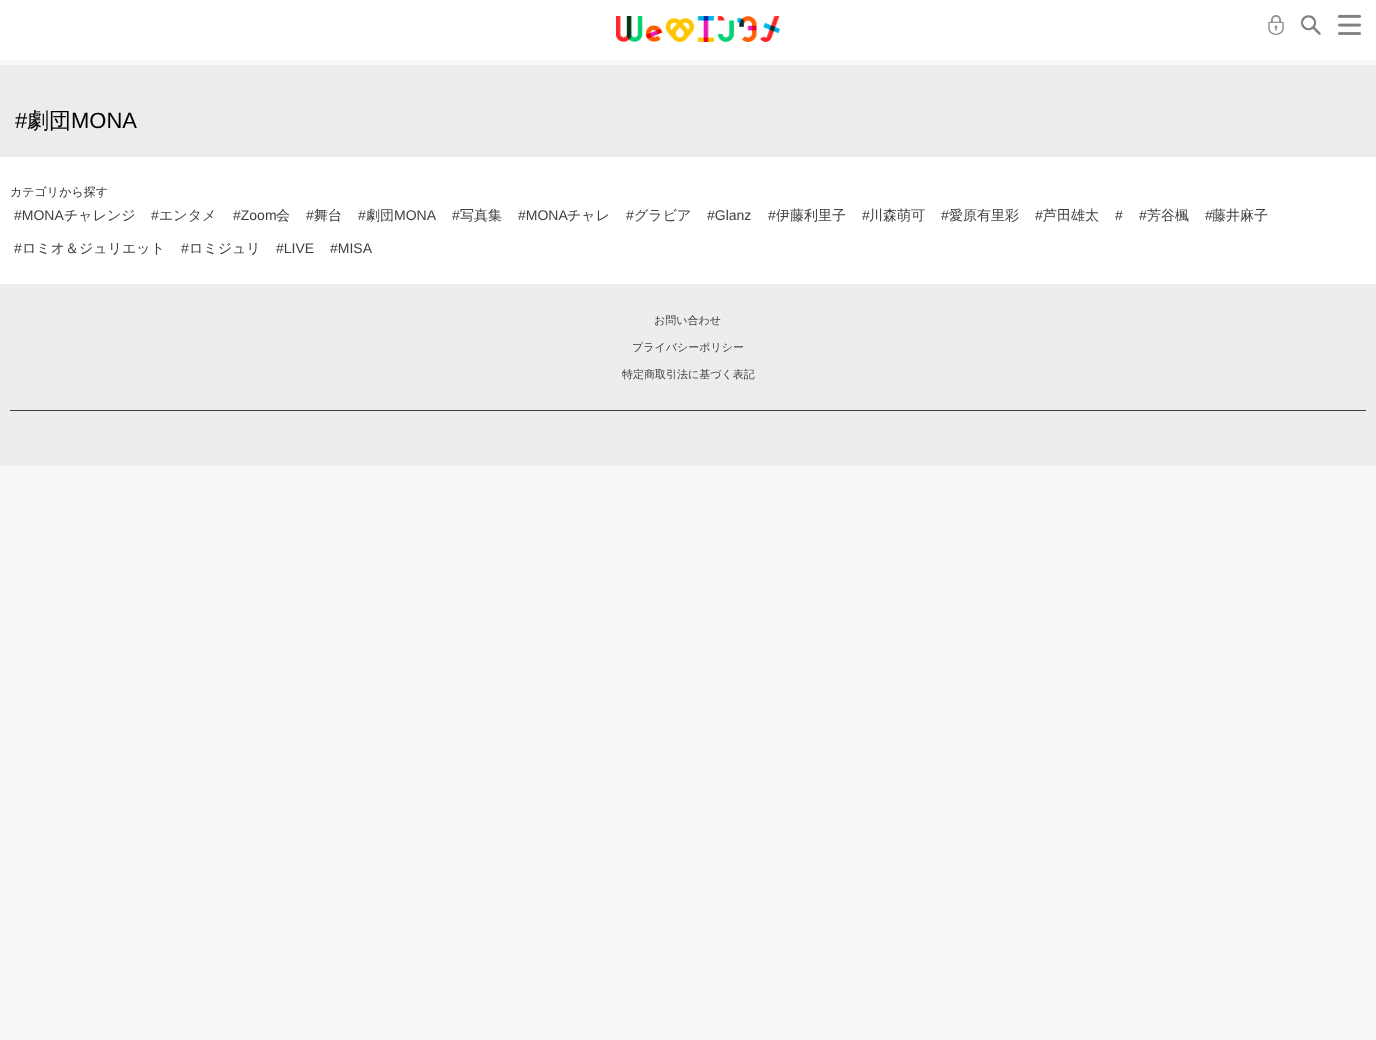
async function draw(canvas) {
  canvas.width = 1376;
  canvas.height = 1040;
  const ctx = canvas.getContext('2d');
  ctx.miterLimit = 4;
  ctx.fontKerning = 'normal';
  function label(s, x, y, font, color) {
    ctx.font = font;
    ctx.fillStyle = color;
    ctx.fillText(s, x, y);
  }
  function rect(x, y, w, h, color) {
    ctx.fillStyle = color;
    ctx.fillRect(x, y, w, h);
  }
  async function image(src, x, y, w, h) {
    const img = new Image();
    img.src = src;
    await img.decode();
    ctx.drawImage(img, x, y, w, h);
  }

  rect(0, 0, 1376, 1040, '#f9f8f8');
  rect(0, 0, 1376, 60, '#fff');
  await image('assets/img1.png', 616, 16, 164, 26);
  await image('assets/img2.png', 1268, 15, 16, 20);
  await image('assets/img3.png', 1301, 15, 20, 20);
  await image('assets/img4.png', 1338, 14, 23, 21);
  rect(0, 65, 1376, 92, '#ececec');
  label('#', 15, 128, '22px Liberation Sans', '#000');
  label('劇団', 27, 128, '500 22px WenQuanYi Zen Hei', '#000');
  label('MONA', 71, 128, '22px Liberation Sans', '#000');
  rect(0, 157, 1376, 127, '#fff');
  label('カテゴリから探す', 10, 196, '500 12px WenQuanYi Zen Hei', '#333');
  label('#MONA', 14, 220, '14px Liberation Sans', '#413d3c');
  label('チャレンジ', 64, 220, '500 14px WenQuanYi Zen Hei', '#413d3c');
  label('#', 151, 220, '14px Liberation Sans', '#413d3c');
  label('エンタメ', 159, 220, '500 14px WenQuanYi Zen Hei', '#413d3c');
  label('#Zoom', 233, 220, '14px Liberation Sans', '#413d3c');
  label('会', 276, 220, '500 14px WenQuanYi Zen Hei', '#413d3c');
  label('#', 306, 220, '14px Liberation Sans', '#413d3c');
  label('舞台', 314, 220, '500 14px WenQuanYi Zen Hei', '#413d3c');
  label('#', 358, 220, '14px Liberation Sans', '#413d3c');
  label('劇団', 366, 220, '500 14px WenQuanYi Zen Hei', '#413d3c');
  label('MONA', 394, 220, '14px Liberation Sans', '#413d3c');
  label('#', 452, 220, '14px Liberation Sans', '#413d3c');
  label('写真集', 460, 220, '500 14px WenQuanYi Zen Hei', '#413d3c');
  label('#MONA', 518, 220, '14px Liberation Sans', '#413d3c');
  label('チャレ', 567, 220, '500 14px WenQuanYi Zen Hei', '#413d3c');
  label('#', 626, 220, '14px Liberation Sans', '#413d3c');
  label('グラビア', 634, 220, '500 14px WenQuanYi Zen Hei', '#413d3c');
  label('#Glanz', 707, 220, '14px Liberation Sans', '#413d3c');
  label('#', 768, 220, '14px Liberation Sans', '#413d3c');
  label('伊藤利里子', 776, 220, '500 14px WenQuanYi Zen Hei', '#413d3c');
  label('#', 862, 220, '14px Liberation Sans', '#413d3c');
  label('川森萌可', 869, 220, '500 14px WenQuanYi Zen Hei', '#413d3c');
  label('#', 941, 220, '14px Liberation Sans', '#413d3c');
  label('愛原有里彩', 949, 220, '500 14px WenQuanYi Zen Hei', '#413d3c');
  label('#', 1035, 220, '14px Liberation Sans', '#413d3c');
  label('芦田雄太', 1043, 220, '500 14px WenQuanYi Zen Hei', '#413d3c');
  label('#', 1115, 220, '14px Liberation Sans', '#413d3c');
  label('#', 1139, 220, '14px Liberation Sans', '#413d3c');
  label('芳谷楓', 1147, 220, '500 14px WenQuanYi Zen Hei', '#413d3c');
  label('#', 1205, 220, '14px Liberation Sans', '#413d3c');
  label('藤井麻子', 1212, 220, '500 14px WenQuanYi Zen Hei', '#413d3c');
  label('#', 14, 253, '14px Liberation Sans', '#413d3c');
  label('ロミオ＆ジュリエット', 22, 253, '500 14px WenQuanYi Zen Hei', '#413d3c');
  label('#', 181, 253, '14px Liberation Sans', '#413d3c');
  label('ロミジュリ', 189, 253, '500 14px WenQuanYi Zen Hei', '#413d3c');
  label('#LIVE', 276, 253, '14px Liberation Sans', '#413d3c');
  label('#MISA', 330, 253, '14px Liberation Sans', '#413d3c');
  rect(0, 284, 1376, 182, '#ededed');
  rect(10, 410, 1356, 1, '#413d3c');
  label('お問い合わせ', 654, 324, '500 11px WenQuanYi Zen Hei', '#413d3c');
  label('プライバシーポリシー', 632, 351, '500 11px WenQuanYi Zen Hei', '#413d3c');
  label('特定商取引法に基づく表記', 622, 378, '500 11px WenQuanYi Zen Hei', '#413d3c');
}

draw(document.querySelector('canvas'));
